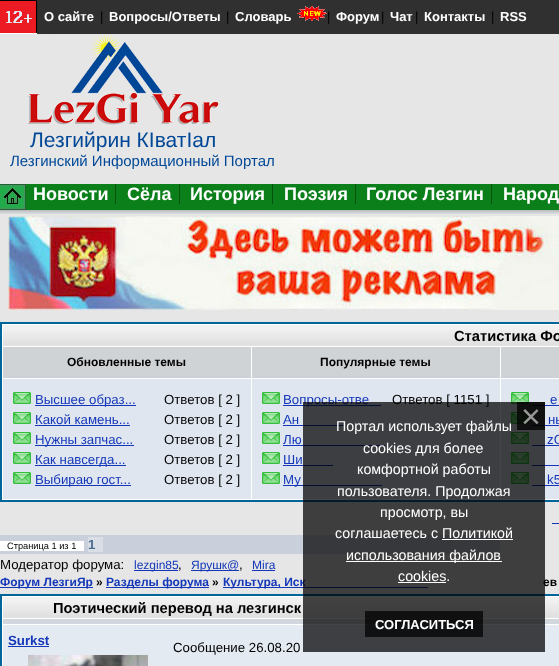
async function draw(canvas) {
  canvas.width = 559;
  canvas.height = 666;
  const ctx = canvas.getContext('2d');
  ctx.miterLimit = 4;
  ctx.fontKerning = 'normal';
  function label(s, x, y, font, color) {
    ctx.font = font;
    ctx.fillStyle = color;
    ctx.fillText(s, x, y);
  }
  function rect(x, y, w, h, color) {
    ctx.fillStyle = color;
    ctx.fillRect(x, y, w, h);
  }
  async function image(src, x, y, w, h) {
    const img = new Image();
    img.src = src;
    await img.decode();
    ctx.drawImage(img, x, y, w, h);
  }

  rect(0, 0, 559, 666, '#e6e6e6');
  rect(37, 0, 522, 34, '#303030');
  await image('assets/img1.png', 0, 0, 37, 34);
  label('О сайте', 44, 21, 'bold 13px Liberation Sans', '#fff');
  label('|', 100, 21, '13px Liberation Sans', '#000');
  label('Вопросы/Ответы', 109, 21, 'bold 13px Liberation Sans', '#fff');
  label('|', 226, 21, '13px Liberation Sans', '#000');
  label('Словарь', 235, 21, 'bold 13px Liberation Sans', '#fff');
  await image('assets/img2.png', 297, 6, 30, 15);
  label('|', 327, 21, '13px Liberation Sans', '#000');
  label('Форум', 336, 21, 'bold 13px Liberation Sans', '#fff');
  label('|', 381, 21, '13px Liberation Sans', '#000');
  label('Чат', 390, 21, 'bold 13px Liberation Sans', '#fff');
  label('|', 415, 21, '13px Liberation Sans', '#000');
  label('Контакты', 424, 21, 'bold 13px Liberation Sans', '#fff');
  label('|', 491, 21, '13px Liberation Sans', '#000');
  label('RSS', 500, 21, 'bold 13px Liberation Sans', '#fff');
  await image('assets/img3.png', 27, 34, 192, 91);
  label('Лезгийрин КIватIал', 30, 147, '21px Liberation Sans', '#004897');
  label('Лезгинский Информационный Портал', 10, 166, '15px Liberation Sans', '#004897');
  await image('assets/img4.png', 0, 184, 26, 26);
  rect(26, 184, 533, 26, '#0b7f1a');
  label('Новости', 33, 200, 'bold 18px Liberation Sans', '#fff');
  rect(115, 184, 1, 20, '#02540c');
  label('Сёла', 127, 200, 'bold 18px Liberation Sans', '#fff');
  rect(179, 184, 1, 20, '#02540c');
  label('История', 190, 200, 'bold 18px Liberation Sans', '#fff');
  rect(272, 184, 1, 20, '#02540c');
  label('Поэзия', 284, 200, 'bold 18px Liberation Sans', '#fff');
  rect(355, 184, 1, 20, '#02540c');
  label('Голос Лезгин', 366, 200, 'bold 18px Liberation Sans', '#fff');
  rect(491, 184, 1, 20, '#02540c');
  label('Народ', 503, 200, 'bold 18px Liberation Sans', '#fff');
  await image('assets/img5.png', 0, 210, 559, 4);
  await image('assets/img6.png', 8, 216, 551, 94);
  ctx.beginPath();
  ctx.rect(1, 323, 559, 178);
  ctx.fill();
  ctx.strokeStyle = '#069';
  ctx.lineWidth = 2;
  ctx.stroke();
  await image('assets/img7.png', 3, 325, 556, 21);
  label('Статистика Фо', 454, 341, 'bold 14.7px Liberation Sans', '#000');
  rect(3, 347, 248, 30, '#d0d3d6');
  rect(3, 377, 248, 1, '#c7d0d7');
  label('Обновленные темы', 67, 366, 'bold 12px Liberation Sans', '#000');
  rect(252, 347, 248, 30, '#d0d3d6');
  rect(252, 377, 248, 1, '#c7d0d7');
  label('Популярные темы', 320, 366, 'bold 12px Liberation Sans', '#000');
  rect(501, 347, 58, 30, '#d0d3d6');
  rect(501, 377, 58, 1, '#c7d0d7');
  rect(3, 379, 248, 120, '#dfe6ef');
  await image('assets/img8.png', 13, 392, 18, 12);
  rect(35, 405, 101, 1, '#1437b9');
  label('Высшее образ...', 35, 404, '13.25px Liberation Sans', '#1437b9');
  label('Ответов [ 2 ]', 164, 404, '13.25px Liberation Sans', '#000');
  await image('assets/img8.png', 13, 412, 18, 12);
  label('Какой камень...', 35, 424, '13.25px Liberation Sans', '#1437b9');
  rect(35, 425, 95, 1, '#1437b9');
  label('Ответов [ 2 ]', 164, 424, '13.25px Liberation Sans', '#000');
  await image('assets/img8.png', 13, 432, 18, 12);
  rect(35, 445, 99, 1, '#1437b9');
  label('Нужны запчас...', 35, 444, '13.25px Liberation Sans', '#1437b9');
  label('Ответов [ 2 ]', 164, 444, '13.25px Liberation Sans', '#000');
  await image('assets/img8.png', 13, 452, 18, 12);
  rect(35, 465, 91, 1, '#1437b9');
  label('Как навсегда...', 35, 464, '13.25px Liberation Sans', '#1437b9');
  label('Ответов [ 2 ]', 164, 464, '13.25px Liberation Sans', '#000');
  await image('assets/img8.png', 13, 472, 18, 12);
  rect(35, 485, 96, 1, '#1437b9');
  label('Выбираю гост...', 35, 484, '13.25px Liberation Sans', '#1437b9');
  label('Ответов [ 2 ]', 164, 484, '13.25px Liberation Sans', '#000');
  rect(252, 379, 248, 120, '#dfe6ef');
  await image('assets/img8.png', 262, 392, 18, 12);
  rect(283, 405, 98, 1, '#1437b9');
  label('Вопросы-отве', 283, 404, '13.25px Liberation Sans', '#1437b9');
  label('Ответов [ 1151 ]', 392, 404, '13.25px Liberation Sans', '#000');
  await image('assets/img8.png', 262, 412, 18, 12);
  label('Ан', 283, 424, '13.25px Liberation Sans', '#1437b9');
  rect(283, 425, 61, 1, '#1437b9');
  await image('assets/img8.png', 262, 432, 18, 12);
  label('Лю', 283, 444, '13.25px Liberation Sans', '#1437b9');
  rect(283, 445, 102, 1, '#1437b9');
  await image('assets/img8.png', 262, 452, 18, 12);
  label('Ши', 283, 464, '13.25px Liberation Sans', '#1437b9');
  rect(283, 465, 50, 1, '#1437b9');
  await image('assets/img8.png', 262, 472, 18, 12);
  rect(283, 485, 99, 1, '#1437b9');
  label('Му', 283, 484, '13.25px Liberation Sans', '#1437b9');
  rect(501, 379, 58, 120, '#dfe6ef');
  await image('assets/img8.png', 511, 392, 18, 12);
  label('е', 550, 404, '13.25px Liberation Sans', '#1437b9');
  rect(532, 405, 27, 1, '#1437b9');
  await image('assets/img8.png', 511, 412, 18, 12);
  label('нь', 548, 424, '13.25px Liberation Sans', '#1437b9');
  rect(532, 425, 27, 1, '#1437b9');
  await image('assets/img8.png', 511, 432, 18, 12);
  label('zG', 547, 444, '13.25px Liberation Sans', '#1437b9');
  rect(532, 445, 27, 1, '#1437b9');
  await image('assets/img8.png', 511, 452, 18, 12);
  rect(532, 465, 27, 1, '#1437b9');
  await image('assets/img8.png', 511, 472, 18, 12);
  label('k5', 547, 484, '13.25px Liberation Sans', '#1437b9');
  rect(532, 485, 27, 1, '#1437b9');
  rect(552, 523, 7, 1, '#1437b9');
  rect(0, 535, 500, 19, '#c9d0db');
  rect(0, 541, 84, 10, '#fff');
  label('Страница 1 из 1', 7, 549, '9.25px Liberation Sans', '#000');
  rect(88, 537, 15, 15, '#dadfe7');
  label('1', 88, 549, 'bold 13.25px Liberation Sans', '#4d6d91');
  label('Модератор форума:', 0, 569, '13.25px Liberation Sans', '#000');
  rect(134, 570, 44, 1, '#1437b9');
  label('lezgin85', 134, 569, '12px Liberation Sans', '#1437b9');
  label(',', 178, 569, '13.25px Liberation Sans', '#000');
  rect(191, 570, 48, 1, '#1437b9');
  label('Ярушк@', 191, 569, '12px Liberation Sans', '#1437b9');
  label(',', 239, 569, '13.25px Liberation Sans', '#000');
  label('Mira', 252, 569, '12px Liberation Sans', '#1437b9');
  rect(252, 570, 23, 1, '#1437b9');
  rect(0, 587, 93, 1, '#1437b9');
  label('Форум ЛезгиЯр', 0, 586, 'bold 12px Liberation Sans', '#1437b9');
  label('»', 96, 586, 'bold 12px Liberation Sans', '#000');
  rect(106, 587, 103, 1, '#1437b9');
  label('Разделы форума', 106, 586, 'bold 12px Liberation Sans', '#1437b9');
  label('»', 212, 586, 'bold 12px Liberation Sans', '#000');
  rect(223, 587, 205, 1, '#1437b9');
  label('Культура, Иск', 223, 586, 'bold 12px Liberation Sans', '#1437b9');
  label('ев', 543, 586, 'bold 12px Liberation Sans', '#000');
  ctx.fillStyle = '#fff';
  ctx.beginPath();
  ctx.rect(1, 595, 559, 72);
  ctx.fill();
  ctx.stroke();
  await image('assets/img7.png', 3, 597, 556, 21);
  label('Поэтический перевод на лезгинск', 53, 613, 'bold 14.7px Liberation Sans', '#000');
  rect(3, 619, 556, 5, '#d1d7dc');
  rect(3, 625, 556, 41, '#e4eaf2');
  label('Surkst', 8, 645, 'bold 13.25px Liberation Sans', '#1437b9');
  rect(8, 646, 41, 1, '#1437b9');
  label('Сообщение 26.08.20', 173, 652, '13.25px Liberation Sans', '#000');
  await image('assets/img9.png', 28, 655, 120, 11);
  rect(303, 402, 242, 250, '#000000ba');
  rect(517, 402, 28, 28, '#000000ba');
  label('×', 521, 428, '34px Liberation Sans', '#999');
  rect(365, 611, 118, 26, '#000000ba');
  label('СОГЛАСИТЬСЯ', 375, 629, 'bold 13px Liberation Sans', '#fff');
  label('Портал использует файлы', 336, 431, '14.25px Liberation Sans', '#fff');
  label('cookies для более', 363, 453, '14.25px Liberation Sans', '#fff');
  label('комфортной работы', 357, 474, '14.25px Liberation Sans', '#fff');
  label('пользователя. Продолжая', 337, 496, '14.25px Liberation Sans', '#fff');
  label('просмотр, вы', 380, 517, '14.25px Liberation Sans', '#fff');
  label('соглашаетесь с Политикой', 335, 538, '14.25px Liberation Sans', '#fff');
  rect(346, 561, 156, 1, '#fff');
  label('использования файлов', 346, 560, '14.25px Liberation Sans', '#fff');
  rect(442, 539, 71, 1, '#fff');
  label('cookies.', 398, 581, '14.25px Liberation Sans', '#fff');
  rect(398, 582, 48, 1, '#fff');
}

draw(document.querySelector('canvas'));
